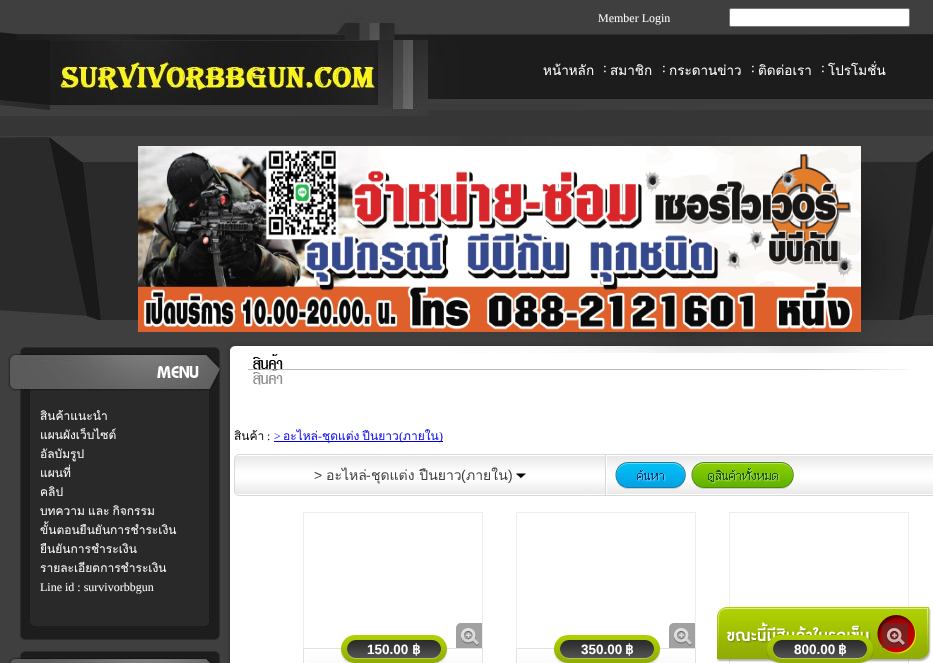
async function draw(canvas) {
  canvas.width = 933;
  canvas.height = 663;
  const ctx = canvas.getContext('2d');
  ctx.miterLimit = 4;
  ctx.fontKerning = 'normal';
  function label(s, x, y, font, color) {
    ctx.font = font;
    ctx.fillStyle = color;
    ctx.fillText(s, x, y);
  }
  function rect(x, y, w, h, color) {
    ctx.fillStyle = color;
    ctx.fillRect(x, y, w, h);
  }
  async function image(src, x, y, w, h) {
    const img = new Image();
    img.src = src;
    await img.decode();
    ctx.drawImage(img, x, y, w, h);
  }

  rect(0, 0, 933, 663, '#363636');
  await image('assets/img1.png', 0, 0, 933, 110);
  label('Member Login', 598, 22, '12px Liberation Serif', '#fff');
  ctx.beginPath();
  ctx.roundRect(729.5, 8.5, 180, 18, 1.5);
  ctx.fill();
  ctx.strokeStyle = '#767676';
  ctx.stroke();
  await image('assets/img2.png', 0, 40, 50, 76);
  await image('assets/img3.png', 50, 40, 378, 76);
  label('หน้าหลัก', 543, 75, '13.5px Loma', '#fff');
  label(':', 603, 72, '13.5px Liberation Serif', '#fff');
  label('สมาชิก', 610, 75, '13.5px Loma', '#fff');
  label(':', 662, 72, '13.5px Liberation Serif', '#fff');
  label('กระดานข่าว', 669, 75, '13.5px Loma', '#fff');
  label(':', 751, 72, '13.5px Liberation Serif', '#fff');
  label('ติดต่อเรา', 758, 75, '13.5px Loma', '#fff');
  label('โปรโมชั่น', 828, 75, '13.5px Loma', '#fff');
  label(':', 821, 72, '13.5px Liberation Serif', '#fff');
  await image('assets/img4.png', 0, 136, 138, 209);
  await image('assets/img5.png', 138, 136, 723, 10);
  await image('assets/img6.png', 138, 146, 723, 186);
  await image('assets/img7.png', 138, 332, 723, 13);
  await image('assets/img8.png', 861, 136, 72, 208);
  rect(0, 345, 222, 318, '#3f3f3f');
  await image('assets/img9.png', 20, 392, 200, 225);
  await image('assets/img10.png', 8, 345, 214, 47);
  label('สินค้าแนะนำ', 40, 420, '12px Loma', '#fff');
  label('แผนผังเว็บไซต์', 40, 439, '12px Loma', '#fff');
  label('อัลบัมรูป', 40, 458, '12px Loma', '#fff');
  label('แผนที่', 40, 477, '12px Loma', '#fff');
  label('คลิป', 40, 496, '12px Loma', '#fff');
  ctx.wordSpacing = '-1px';
  label('บทความ และ กิจกรรม', 40, 515, '12px Loma', '#fff');
  ctx.wordSpacing = '0px';
  label('ขั้นตอนยืนยันการชำระเงิน', 40, 534, '12px Loma', '#fff');
  label('ยืนยันการชำระเงิน', 40, 553, '12px Loma', '#fff');
  label('รายละเอียดการชำระเงิน', 40, 572, '12px Loma', '#fff');
  label('Line id : survivorbbgun', 40, 591, '12px Liberation Serif', '#fff');
  await image('assets/img11.png', 20, 617, 200, 30);
  await image('assets/img12.png', 8, 647, 212, 16);
  await image('assets/img13.png', 222, 345, 711, 8);
  await image('assets/img14.png', 222, 353, 12, 310);
  rect(234, 353, 699, 310, '#fff');
  await image('assets/img15.png', 248, 354, 662, 31);
  label('สินค้า', 234, 440, '12px Loma', '#000');
  label(':', 267, 440, '12px Liberation Serif', '#000');
  label('>', 274, 440, '12px Liberation Serif', '#00e');
  label('อะไหล่', 283, 440, '12px Loma', '#00e');
  label('-', 318, 440, '12px Liberation Serif', '#00e');
  rect(274, 441, 169, 1, '#00e');
  ctx.wordSpacing = '-1px';
  label('ชุดแต่ง ปืนยาว', 322, 440, '12px Loma', '#00e');
  ctx.wordSpacing = '0px';
  label('(', 399, 440, '12px Liberation Serif', '#00e');
  label('ภายใน', 403, 440, '12px Loma', '#00e');
  label(')', 439, 440, '12px Liberation Serif', '#00e');
  await image('assets/img16.png', 234, 456, 699, 38);
  ctx.beginPath();
  ctx.roundRect(234.5, 454.5, 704, 41, 4.5);
  ctx.strokeStyle = '#d9d9d9';
  ctx.stroke();
  rect(239, 494, 1, 1, '#fbfbfb');
  rect(605, 455, 1, 40, '#d8d8d8');
  label('>', 314, 480, '14px Liberation Sans', '#404040');
  label('อะไหล่', 326, 480, '14px Loma', '#404040');
  label('-', 366, 480, '14px Liberation Sans', '#404040');
  label('ชุดแต่ง ปืนยาว', 371, 480, '14px Loma', '#404040');
  label('(', 461, 480, '14px Liberation Sans', '#404040');
  label('ภายใน', 466, 480, '14px Loma', '#404040');
  label(')', 508, 480, '14px Liberation Sans', '#404040');
  await image('assets/img17.png', 516, 473, 10, 6);
  rect(606, 455, 1, 40, '#fff');
  await image('assets/img18.png', 615, 462, 71, 27);
  await image('assets/img19.png', 691, 462, 103, 27);
  await image('assets/img25.png', 729, 659, 180, 4);
  await image('assets/img20.png', 717, 607, 214, 55);
  rect(303, 512, 180, 1, '#eee');
  rect(482, 512, 1, 136, '#eee');
  rect(303, 512, 1, 136, '#eee');
  ctx.fillStyle = '#a1a1a1';
  ctx.beginPath();
  ctx.roundRect(456, 623, 26, 25, [5, 0, 0, 0]);
  ctx.fill();
  await image('assets/img21.png', 461, 628, 18, 18);
  await image('assets/img22.png', 303, 648, 180, 15);
  await image('assets/img23.png', 340, 635, 108, 28);
  label('150.00', 367, 654, 'bold 13.5px Liberation Sans', '#fff');
  label('฿', 412, 654, 'bold 13.5px DejaVu Sans', '#fff');
  rect(516, 512, 180, 1, '#eee');
  rect(695, 512, 1, 136, '#eee');
  rect(516, 512, 1, 136, '#eee');
  ctx.fillStyle = '#a1a1a1';
  ctx.beginPath();
  ctx.roundRect(669, 623, 26, 25, [5, 0, 0, 0]);
  ctx.fill();
  await image('assets/img21.png', 674, 628, 18, 18);
  await image('assets/img22.png', 516, 648, 180, 15);
  await image('assets/img23.png', 553, 635, 108, 28);
  label('350.00', 581, 654, 'bold 13.5px Liberation Sans', '#fff');
  label('฿', 625, 654, 'bold 13.5px DejaVu Sans', '#fff');
  rect(729, 512, 180, 1, '#eee');
  rect(908, 512, 1, 95, '#eee');
  rect(729, 512, 1, 95, '#eee');
  ctx.fillStyle = '#3f3f3f7d';
  ctx.beginPath();
  ctx.roundRect(882, 623, 26, 25, [5, 0, 0, 0]);
  ctx.fill();
  await image('assets/img24.png', 887, 628, 18, 18);
  await image('assets/img26.png', 766, 635, 108, 28);
  label('800.00', 794, 654, 'bold 13.5px Liberation Sans', '#fff');
  label('฿', 838, 654, 'bold 13.5px DejaVu Sans', '#fff');
}

draw(document.querySelector('canvas'));
